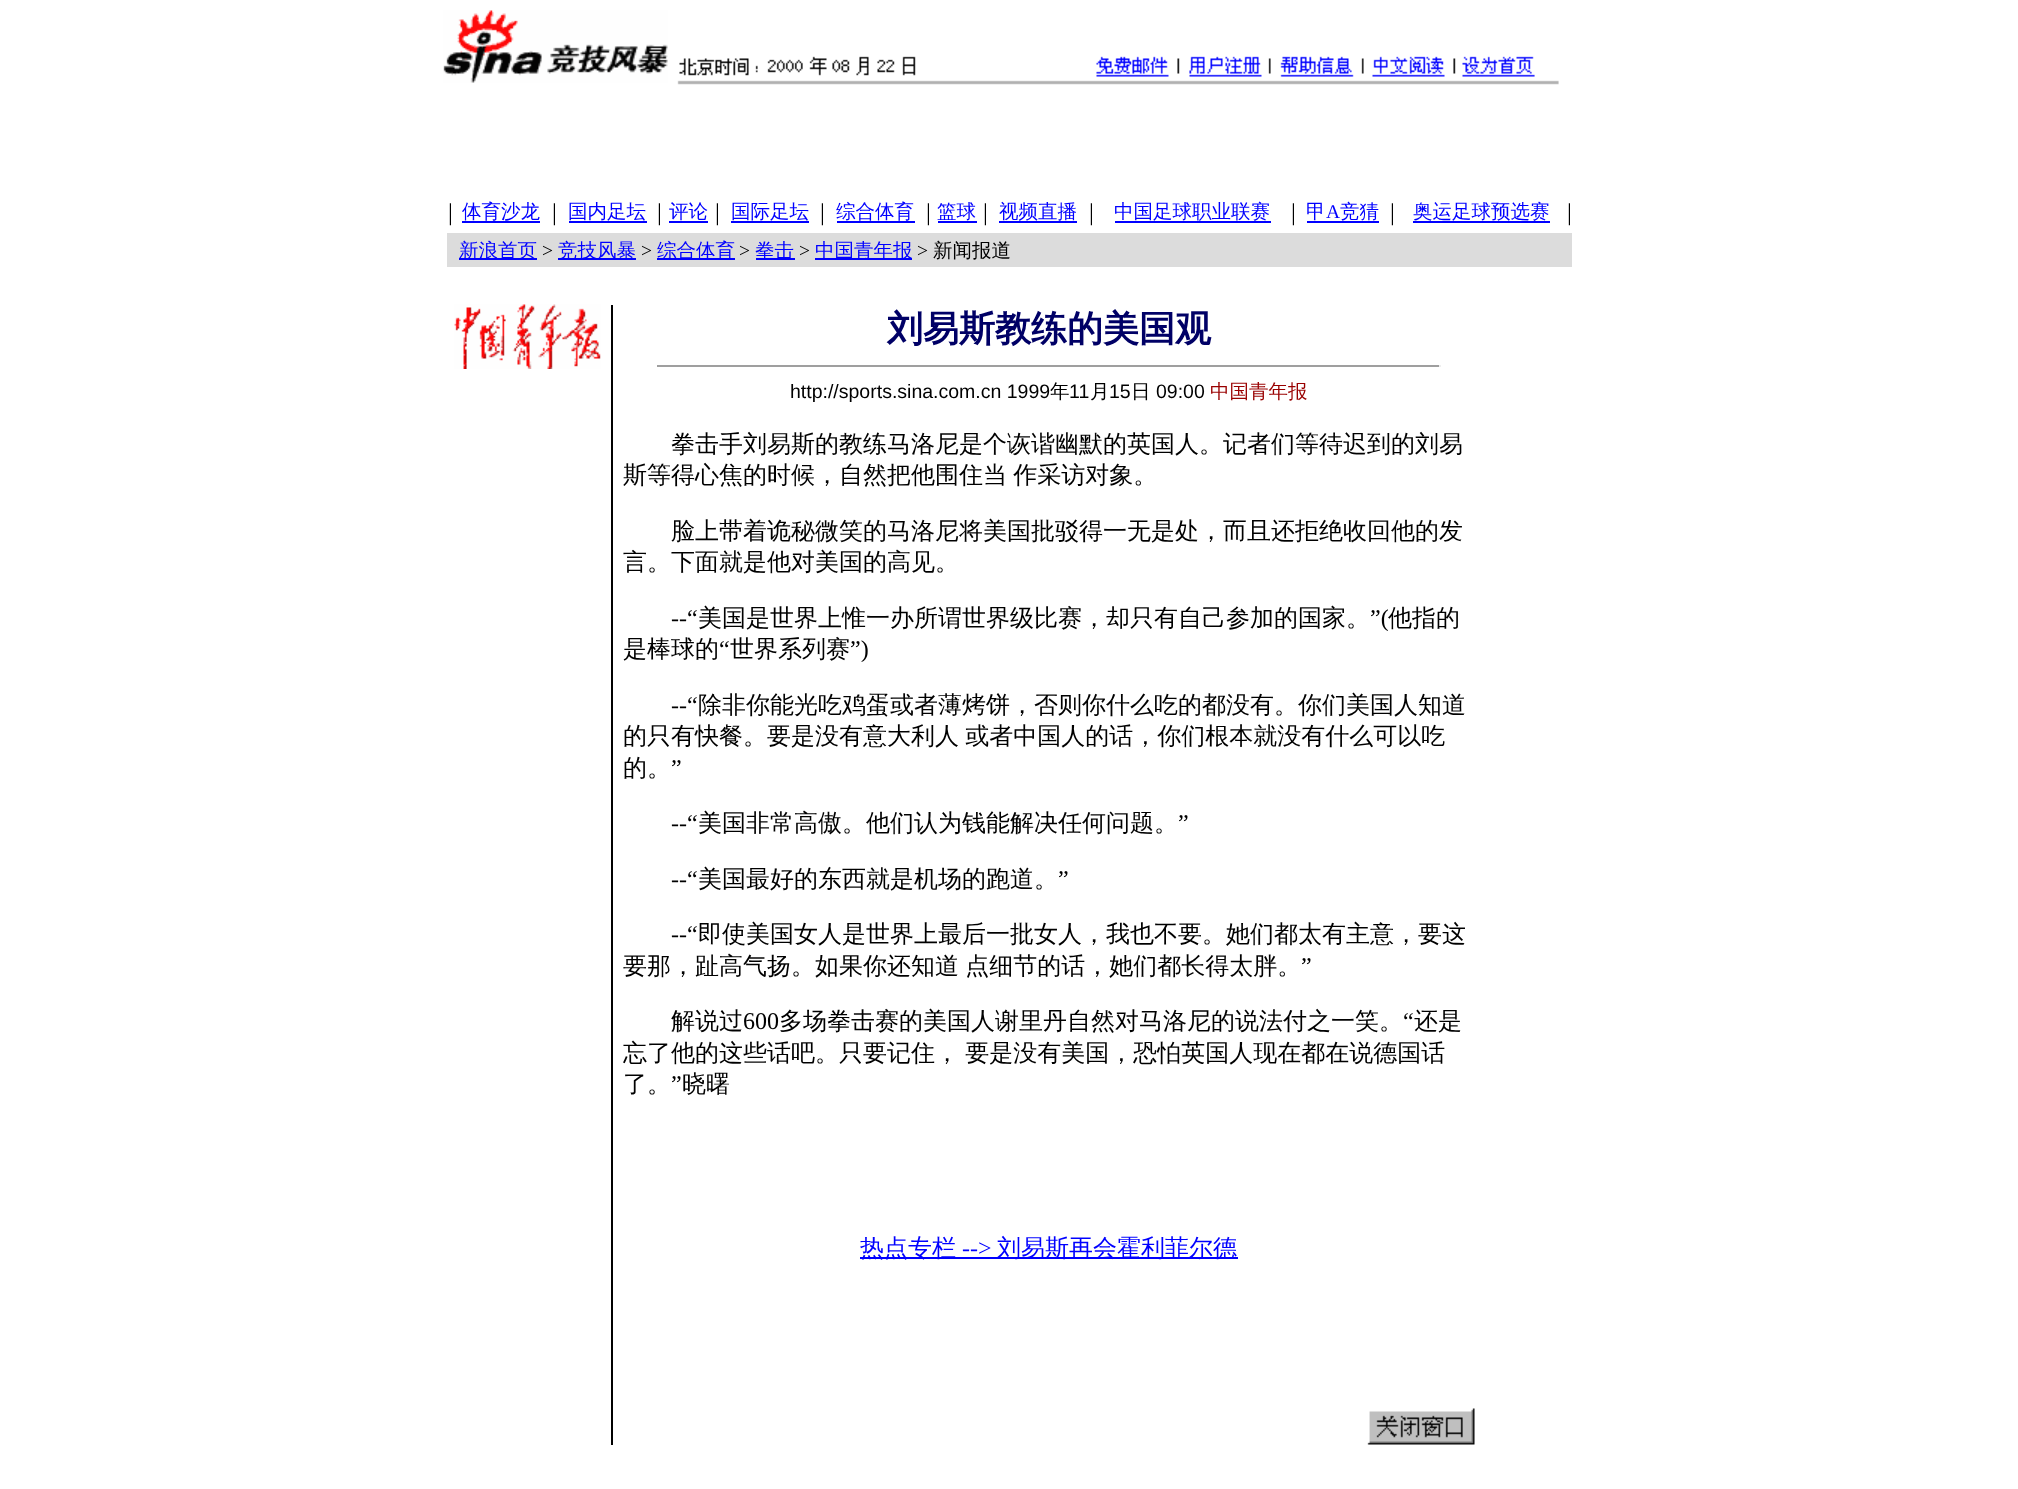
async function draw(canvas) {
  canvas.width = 2018;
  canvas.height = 1489;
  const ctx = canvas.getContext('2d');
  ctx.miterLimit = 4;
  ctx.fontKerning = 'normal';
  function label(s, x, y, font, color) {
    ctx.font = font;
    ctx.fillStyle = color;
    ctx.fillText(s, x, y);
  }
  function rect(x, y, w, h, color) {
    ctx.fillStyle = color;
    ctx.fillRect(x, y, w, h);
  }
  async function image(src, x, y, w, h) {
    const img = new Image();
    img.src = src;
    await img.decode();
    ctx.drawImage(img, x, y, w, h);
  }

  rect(0, 0, 2018, 1489, '#fff');
  await image('assets/img1.png', 443, 10, 225, 73);
  await image('assets/img2.png', 677, 56, 882, 29);
  label('|', 448, 220, '24px Liberation Serif', '#000');
  label('体育沙龙', 462, 218, '500 19.5px WenQuanYi Zen Hei', '#00f');
  rect(462, 221, 78, 2, '#00f');
  label('|', 552, 220, '24px Liberation Serif', '#000');
  label('国内足坛', 568, 218, '500 19.5px WenQuanYi Zen Hei', '#00f');
  rect(569, 221, 78, 2, '#00f');
  label('|', 657, 220, '24px Liberation Serif', '#000');
  label('评论', 669, 218, '500 19.5px WenQuanYi Zen Hei', '#00f');
  rect(669, 221, 39, 2, '#00f');
  label('|', 715, 220, '24px Liberation Serif', '#000');
  label('国际足坛', 731, 218, '500 19.5px WenQuanYi Zen Hei', '#00f');
  rect(731, 221, 78, 2, '#00f');
  label('|', 820, 220, '24px Liberation Serif', '#000');
  label('综合体育', 836, 218, '500 19.5px WenQuanYi Zen Hei', '#00f');
  rect(837, 221, 78, 2, '#00f');
  label('|', 926, 220, '24px Liberation Serif', '#000');
  label('篮球', 937, 218, '500 19.5px WenQuanYi Zen Hei', '#00f');
  rect(938, 221, 39, 2, '#00f');
  label('|', 983, 220, '24px Liberation Serif', '#000');
  label('视频直播', 999, 218, '500 19.5px WenQuanYi Zen Hei', '#00f');
  rect(999, 221, 78, 2, '#00f');
  label('|', 1089, 220, '24px Liberation Serif', '#000');
  label('中国足球职业联赛', 1114, 218, '500 19.5px WenQuanYi Zen Hei', '#00f');
  rect(1115, 221, 156, 2, '#00f');
  label('|', 1291, 220, '24px Liberation Serif', '#000');
  label('甲', 1306, 218, '500 19.5px WenQuanYi Zen Hei', '#00f');
  rect(1307, 221, 72, 2, '#00f');
  label('A', 1326, 218, '19.5px Liberation Serif', '#00f');
  label('竞猜', 1340, 218, '500 19.5px WenQuanYi Zen Hei', '#00f');
  label('|', 1390, 220, '24px Liberation Serif', '#000');
  label('奥运足球预选赛', 1413, 218, '500 19.5px WenQuanYi Zen Hei', '#00f');
  rect(1413, 221, 137, 2, '#00f');
  label('|', 1567, 220, '24px Liberation Serif', '#000');
  rect(447, 233, 1125, 34, '#dcdcdc');
  rect(459, 258, 78, 2, '#00f');
  label('新浪首页', 459, 257, '500 19.5px WenQuanYi Zen Hei', '#00f');
  label('>', 542, 257, '19.5px Liberation Serif', '#000');
  rect(558, 258, 78, 2, '#00f');
  label('竞技风暴', 558, 257, '500 19.5px WenQuanYi Zen Hei', '#00f');
  label('>', 641, 257, '19.5px Liberation Serif', '#000');
  rect(657, 258, 78, 2, '#00f');
  label('综合体育', 657, 257, '500 19.5px WenQuanYi Zen Hei', '#00f');
  label('>', 739, 257, '19.5px Liberation Serif', '#000');
  rect(756, 258, 39, 2, '#00f');
  label('拳击', 755, 257, '500 19.5px WenQuanYi Zen Hei', '#00f');
  label('>', 799, 257, '19.5px Liberation Serif', '#000');
  rect(815, 258, 97, 2, '#00f');
  label('中国青年报', 815, 257, '500 19.5px WenQuanYi Zen Hei', '#00f');
  label('>', 917, 257, '19.5px Liberation Serif', '#000');
  label('新闻报道', 933, 257, '500 19.5px WenQuanYi Zen Hei', '#000');
  await image('assets/img3.png', 454, 304, 147, 65);
  rect(611, 305, 2, 1140, '#000');
  label('刘易斯教练的美国观', 887, 341, 'bold 36px WenQuanYi Zen Hei', '#006');
  rect(657, 365, 783, 2, '#9f9f9f');
  rect(1439, 365, 2, 2, '#eee');
  label('http://sports.sina.com.cn 1999', 790, 398, '19.5px Liberation Sans', '#000');
  label('年', 1050, 398, '500 19.5px WenQuanYi Zen Hei', '#000');
  label('11', 1069, 398, '19.5px Liberation Sans', '#000');
  label('月', 1090, 398, '500 19.5px WenQuanYi Zen Hei', '#000');
  label('15', 1109, 398, '19.5px Liberation Sans', '#000');
  label('日', 1131, 398, '500 19.5px WenQuanYi Zen Hei', '#000');
  label('09:00', 1156, 398, '19.5px Liberation Sans', '#000');
  label('中国青年报', 1210, 398, '500 19.5px WenQuanYi Zen Hei', '#900');
  label('拳击手刘易斯的教练马洛尼是个诙谐幽默的英国人。记者们等待迟到的刘易', 671, 452, '500 24px WenQuanYi Zen Hei', '#000');
  ctx.wordSpacing = '-1px';
  label('斯等得心焦的时候，自然把他围住当 作采访对象。', 623, 483, '500 24px WenQuanYi Zen Hei', '#000');
  ctx.wordSpacing = '0px';
  label('脸上带着诡秘微笑的马洛尼将美国批驳得一无是处，而且还拒绝收回他的发', 671, 539, '500 24px WenQuanYi Zen Hei', '#000');
  label('言。下面就是他对美国的高见。', 623, 570, '500 24px WenQuanYi Zen Hei', '#000');
  label('--“', 671, 626, '24px Liberation Serif', '#000');
  label('美国是世界上惟一办所谓世界级比赛，却只有自己参加的国家。', 698, 626, '500 24px WenQuanYi Zen Hei', '#000');
  label('”(', 1370, 626, '24px Liberation Serif', '#000');
  label('他指的', 1388, 626, '500 24px WenQuanYi Zen Hei', '#000');
  label('是棒球的', 623, 657, '500 24px WenQuanYi Zen Hei', '#000');
  label('“', 719, 657, '24px Liberation Serif', '#000');
  label('世界系列赛', 730, 657, '500 24px WenQuanYi Zen Hei', '#000');
  label('”)', 850, 657, '24px Liberation Serif', '#000');
  label('--“', 671, 713, '24px Liberation Serif', '#000');
  label('除非你能光吃鸡蛋或者薄烤饼，否则你什么吃的都没有。你们美国人知道', 698, 713, '500 24px WenQuanYi Zen Hei', '#000');
  ctx.wordSpacing = '-1px';
  label('的只有快餐。要是没有意大利人 或者中国人的话，你们根本就没有什么可以吃', 623, 744, '500 24px WenQuanYi Zen Hei', '#000');
  ctx.wordSpacing = '0px';
  label('的。', 623, 776, '500 24px WenQuanYi Zen Hei', '#000');
  label('”', 671, 776, '24px Liberation Serif', '#000');
  label('--“', 671, 831, '24px Liberation Serif', '#000');
  label('美国非常高傲。他们认为钱能解决任何问题。', 698, 831, '500 24px WenQuanYi Zen Hei', '#000');
  label('”', 1178, 831, '24px Liberation Serif', '#000');
  label('--“', 671, 887, '24px Liberation Serif', '#000');
  label('美国最好的东西就是机场的跑道。', 698, 887, '500 24px WenQuanYi Zen Hei', '#000');
  label('”', 1058, 887, '24px Liberation Serif', '#000');
  label('--“', 671, 942, '24px Liberation Serif', '#000');
  label('即使美国女人是世界上最后一批女人，我也不要。她们都太有主意，要这', 698, 942, '500 24px WenQuanYi Zen Hei', '#000');
  ctx.wordSpacing = '-1px';
  label('要那，趾高气扬。如果你还知道 点细节的话，她们都长得太胖。', 623, 974, '500 24px WenQuanYi Zen Hei', '#000');
  ctx.wordSpacing = '0px';
  label('”', 1301, 974, '24px Liberation Serif', '#000');
  label('解说过', 671, 1029, '500 24px WenQuanYi Zen Hei', '#000');
  label('600', 743, 1029, '24px Liberation Serif', '#000');
  label('多场拳击赛的美国人谢里丹自然对马洛尼的说法付之一笑。', 779, 1029, '500 24px WenQuanYi Zen Hei', '#000');
  label('“', 1403, 1029, '24px Liberation Serif', '#000');
  label('还是', 1414, 1029, '500 24px WenQuanYi Zen Hei', '#000');
  ctx.wordSpacing = '-1px';
  label('忘了他的这些话吧。只要记住， 要是没有美国，恐怕英国人现在都在说德国话', 623, 1061, '500 24px WenQuanYi Zen Hei', '#000');
  ctx.wordSpacing = '0px';
  label('了。', 623, 1092, '500 24px WenQuanYi Zen Hei', '#000');
  label('”', 671, 1092, '24px Liberation Serif', '#000');
  label('晓曙', 682, 1092, '500 24px WenQuanYi Zen Hei', '#000');
  rect(860, 1257, 378, 2, '#00f');
  label('热点专栏', 860, 1256, '500 24px WenQuanYi Zen Hei', '#00f');
  label('-->', 962, 1256, '24px Liberation Serif', '#00f');
  label('刘易斯再会霍利菲尔德', 997, 1256, '500 24px WenQuanYi Zen Hei', '#00f');
  await image('assets/img4.png', 1367, 1408, 108, 37);
}

draw(document.querySelector('canvas'));
